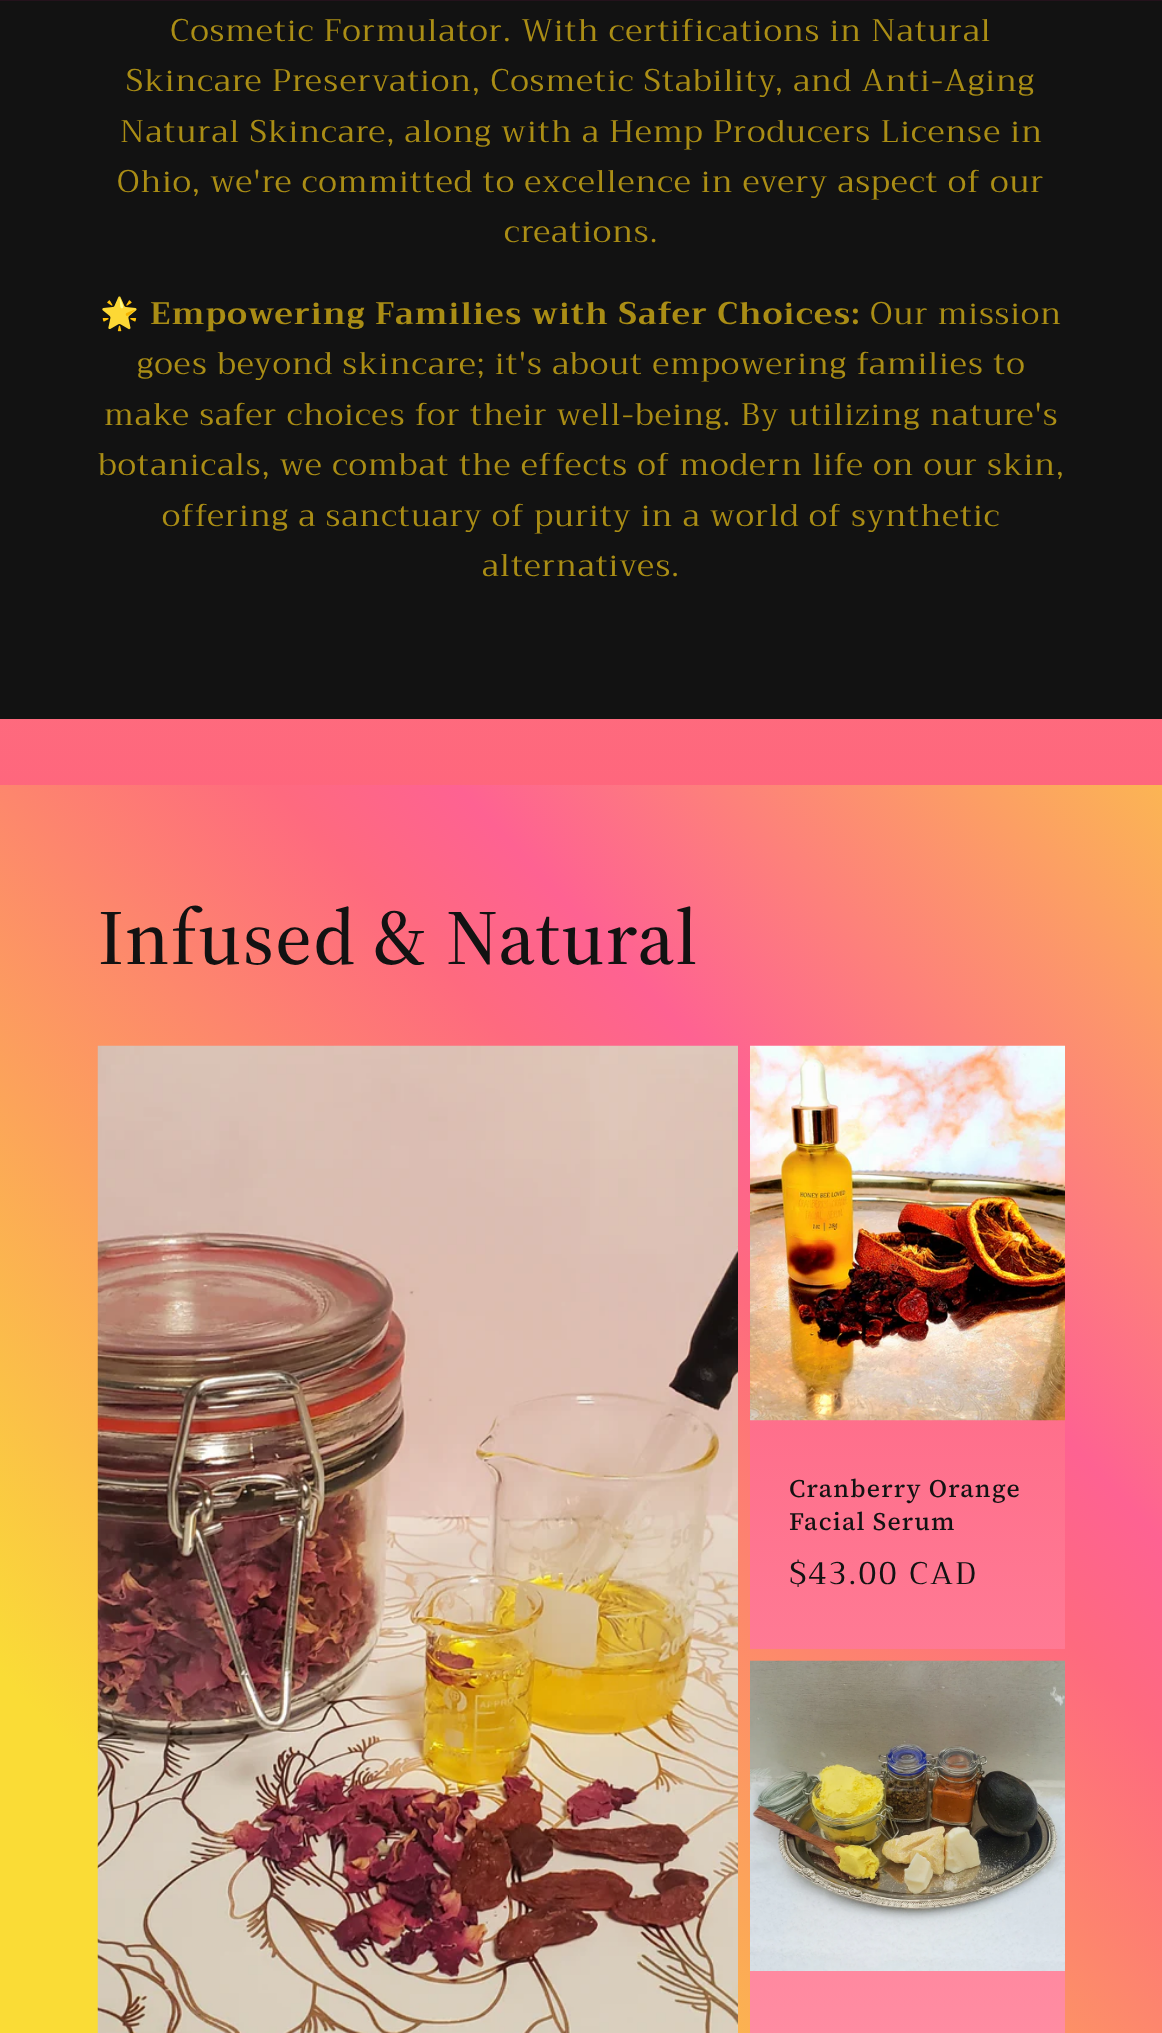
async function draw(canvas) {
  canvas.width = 1162;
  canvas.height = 2033;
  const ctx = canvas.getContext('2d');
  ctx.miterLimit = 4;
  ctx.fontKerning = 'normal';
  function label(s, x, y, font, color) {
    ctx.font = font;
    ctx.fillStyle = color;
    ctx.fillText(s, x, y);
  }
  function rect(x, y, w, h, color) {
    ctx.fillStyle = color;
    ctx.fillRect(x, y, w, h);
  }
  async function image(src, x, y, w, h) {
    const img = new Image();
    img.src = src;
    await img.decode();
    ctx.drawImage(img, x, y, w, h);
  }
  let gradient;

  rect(0, 0, 1162, 2033, '#fff');
  gradient = ctx.createLinearGradient(581, 0, 581, 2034);
  gradient.addColorStop(0, '#ff9181');
  gradient.addColorStop(0.49, '#fe5b7c');
  gradient.addColorStop(1, '#ff8ca2');
  ctx.fillStyle = gradient;
  ctx.fillRect(0, 719, 1162, 66);
  rect(0, 0, 1162, 1, '#24121c');
  rect(0, 1, 1162, 718, '#121212');
  ctx.letterSpacing = '1.17px';
  label('Cosmetic Formulator. With certifications in Natural', 170, 41, '31.2px Trirong', '#aa8d15');
  label('Skincare Preservation, Cosmetic Stability, and Anti-Aging', 126, 91, '31.2px Trirong', '#aa8d15');
  label('Natural Skincare, along with a Hemp Producers License in', 120, 142, '31.2px Trirong', '#aa8d15');
  label('Ohio, we\'re committed to excellence in every aspect of our', 117, 192, '31.2px Trirong', '#aa8d15');
  label('creations.', 504, 242, '31.2px Trirong', '#aa8d15');
  label('🌟', 100, 324, '31.2px Noto Color Emoji', '#aa8d15');
  label('Empowering Families with Safer Choices:', 150, 324, 'bold 31.2px Trirong', '#aa8d15');
  label('Our mission', 870, 324, '31.2px Trirong', '#aa8d15');
  label('goes beyond skincare; it\'s about empowering families to', 137, 374, '31.2px Trirong', '#aa8d15');
  label('make safer choices for their well-being. By utilizing nature\'s', 104, 425, '31.2px Trirong', '#aa8d15');
  label('botanicals, we combat the effects of modern life on our skin,', 98, 475, '31.2px Trirong', '#aa8d15');
  label('offering a sanctuary of purity in a world of synthetic', 162, 526, '31.2px Trirong', '#aa8d15');
  label('alternatives.', 482, 576, '31.2px Trirong', '#aa8d15');
  gradient = ctx.createLinearGradient(-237, 1780, 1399, 254);
  gradient.addColorStop(0.11, '#fadc36');
  gradient.addColorStop(0.47, '#fe6a7f');
  gradient.addColorStop(0.53, '#fe6292');
  gradient.addColorStop(0.87, '#fadc36');
  ctx.fillStyle = gradient;
  ctx.fillRect(0, 785, 1162, 1248);
  label('Infused & Natural', 98, 964, '500 78px "Source Serif 4"', '#121212');
  await image('assets/img1.png', 97, 1045, 641, 988);
  gradient = ctx.createLinearGradient(581, 0, 581, 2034);
  gradient.addColorStop(0, '#ff9181');
  gradient.addColorStop(0.49, '#fe5b7c');
  gradient.addColorStop(1, '#ff8ca2');
  ctx.fillStyle = gradient;
  ctx.fillRect(750, 1420, 315, 229);
  await image('assets/img2.png', 750, 1045, 315, 376);
  label('Cranberry Orange', 789, 1497, '500 25.25px "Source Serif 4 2"', '#121212');
  label('Facial Serum', 789, 1530, '500 25.25px "Source Serif 4 2"', '#121212');
  ctx.letterSpacing = '2px';
  label('$43.00 CAD', 789, 1584, '31.2px Trirong', '#121212');
  gradient = ctx.createLinearGradient(581, 0, 581, 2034);
  gradient.addColorStop(0, '#ff9181');
  gradient.addColorStop(0.49, '#fe5b7c');
  gradient.addColorStop(1, '#ff8ca2');
  ctx.fillStyle = gradient;
  ctx.fillRect(750, 1971, 315, 62);
  await image('assets/img3.png', 750, 1660, 315, 311);
}

draw(document.querySelector('canvas'));
